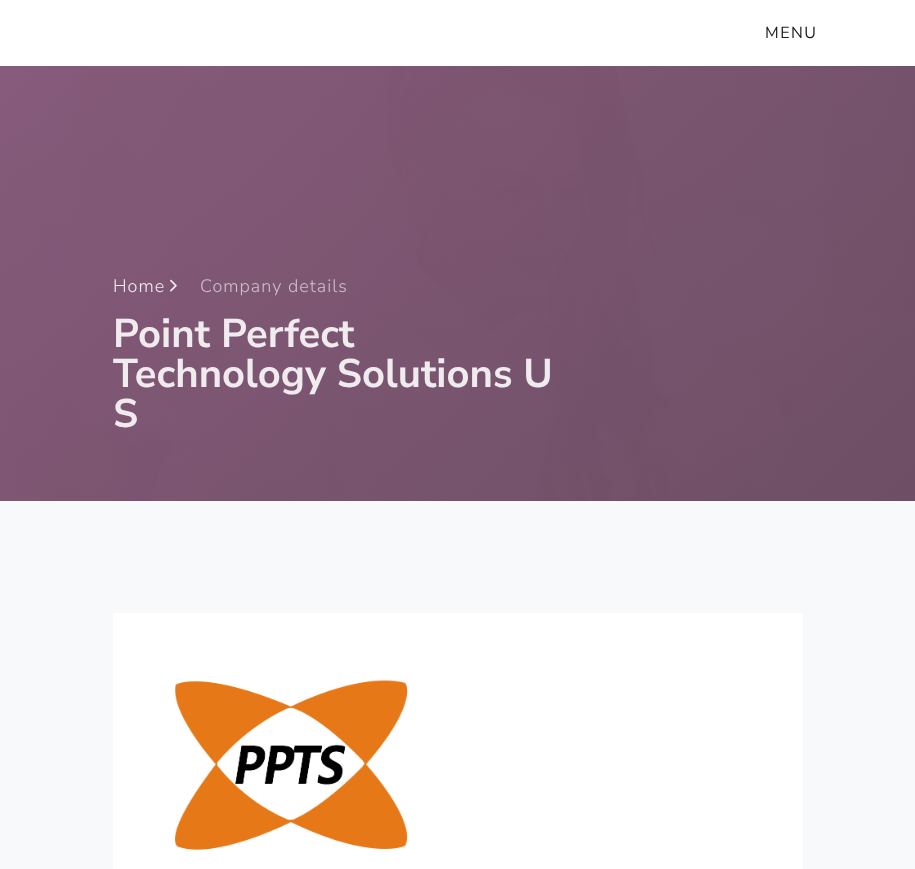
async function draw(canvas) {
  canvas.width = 915;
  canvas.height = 869;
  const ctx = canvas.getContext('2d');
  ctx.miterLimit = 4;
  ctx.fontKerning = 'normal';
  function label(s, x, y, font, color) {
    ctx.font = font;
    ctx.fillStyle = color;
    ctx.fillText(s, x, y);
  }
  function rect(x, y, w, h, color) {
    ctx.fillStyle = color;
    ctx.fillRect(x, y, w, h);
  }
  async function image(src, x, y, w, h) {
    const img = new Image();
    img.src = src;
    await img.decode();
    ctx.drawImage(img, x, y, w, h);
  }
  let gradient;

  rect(0, 0, 915, 869, '#fff');
  ctx.letterSpacing = '1.5px';
  label('MENU', 765, 38, '16px Nunito Sans', '#1a1a1a');
  await image('assets/img1.png', 0, 66, 915, 435);
  gradient = ctx.createLinearGradient(24, -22, 891, 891);
  gradient.addColorStop(0, '#875a7be6');
  gradient.addColorStop(1, '#62495be6');
  ctx.fillStyle = gradient;
  ctx.fillRect(0, 66, 915, 435);
  ctx.letterSpacing = '1px';
  label('Home', 113, 292, '300 18px Nunito Sans', '#f0ebee');
  await image('assets/img2.png', 170, 279, 7, 13);
  label('Company details', 200, 292, '300 18px Nunito Sans', '#cdbec9');
  ctx.letterSpacing = '0px';
  label('Point Perfect', 113, 347, 'bold 40px Nunito Sans', '#f0ebee');
  label('Technology Solutions U', 113, 387, 'bold 40px Nunito Sans', '#f0ebee');
  label('S', 113, 427, 'bold 40px Nunito Sans', '#f0ebee');
  rect(0, 501, 915, 368, '#f8f9fa');
  rect(113, 613, 690, 256, '#fff');
  await image('assets/img3.png', 175, 680, 233, 170);
}

draw(document.querySelector('canvas'));
